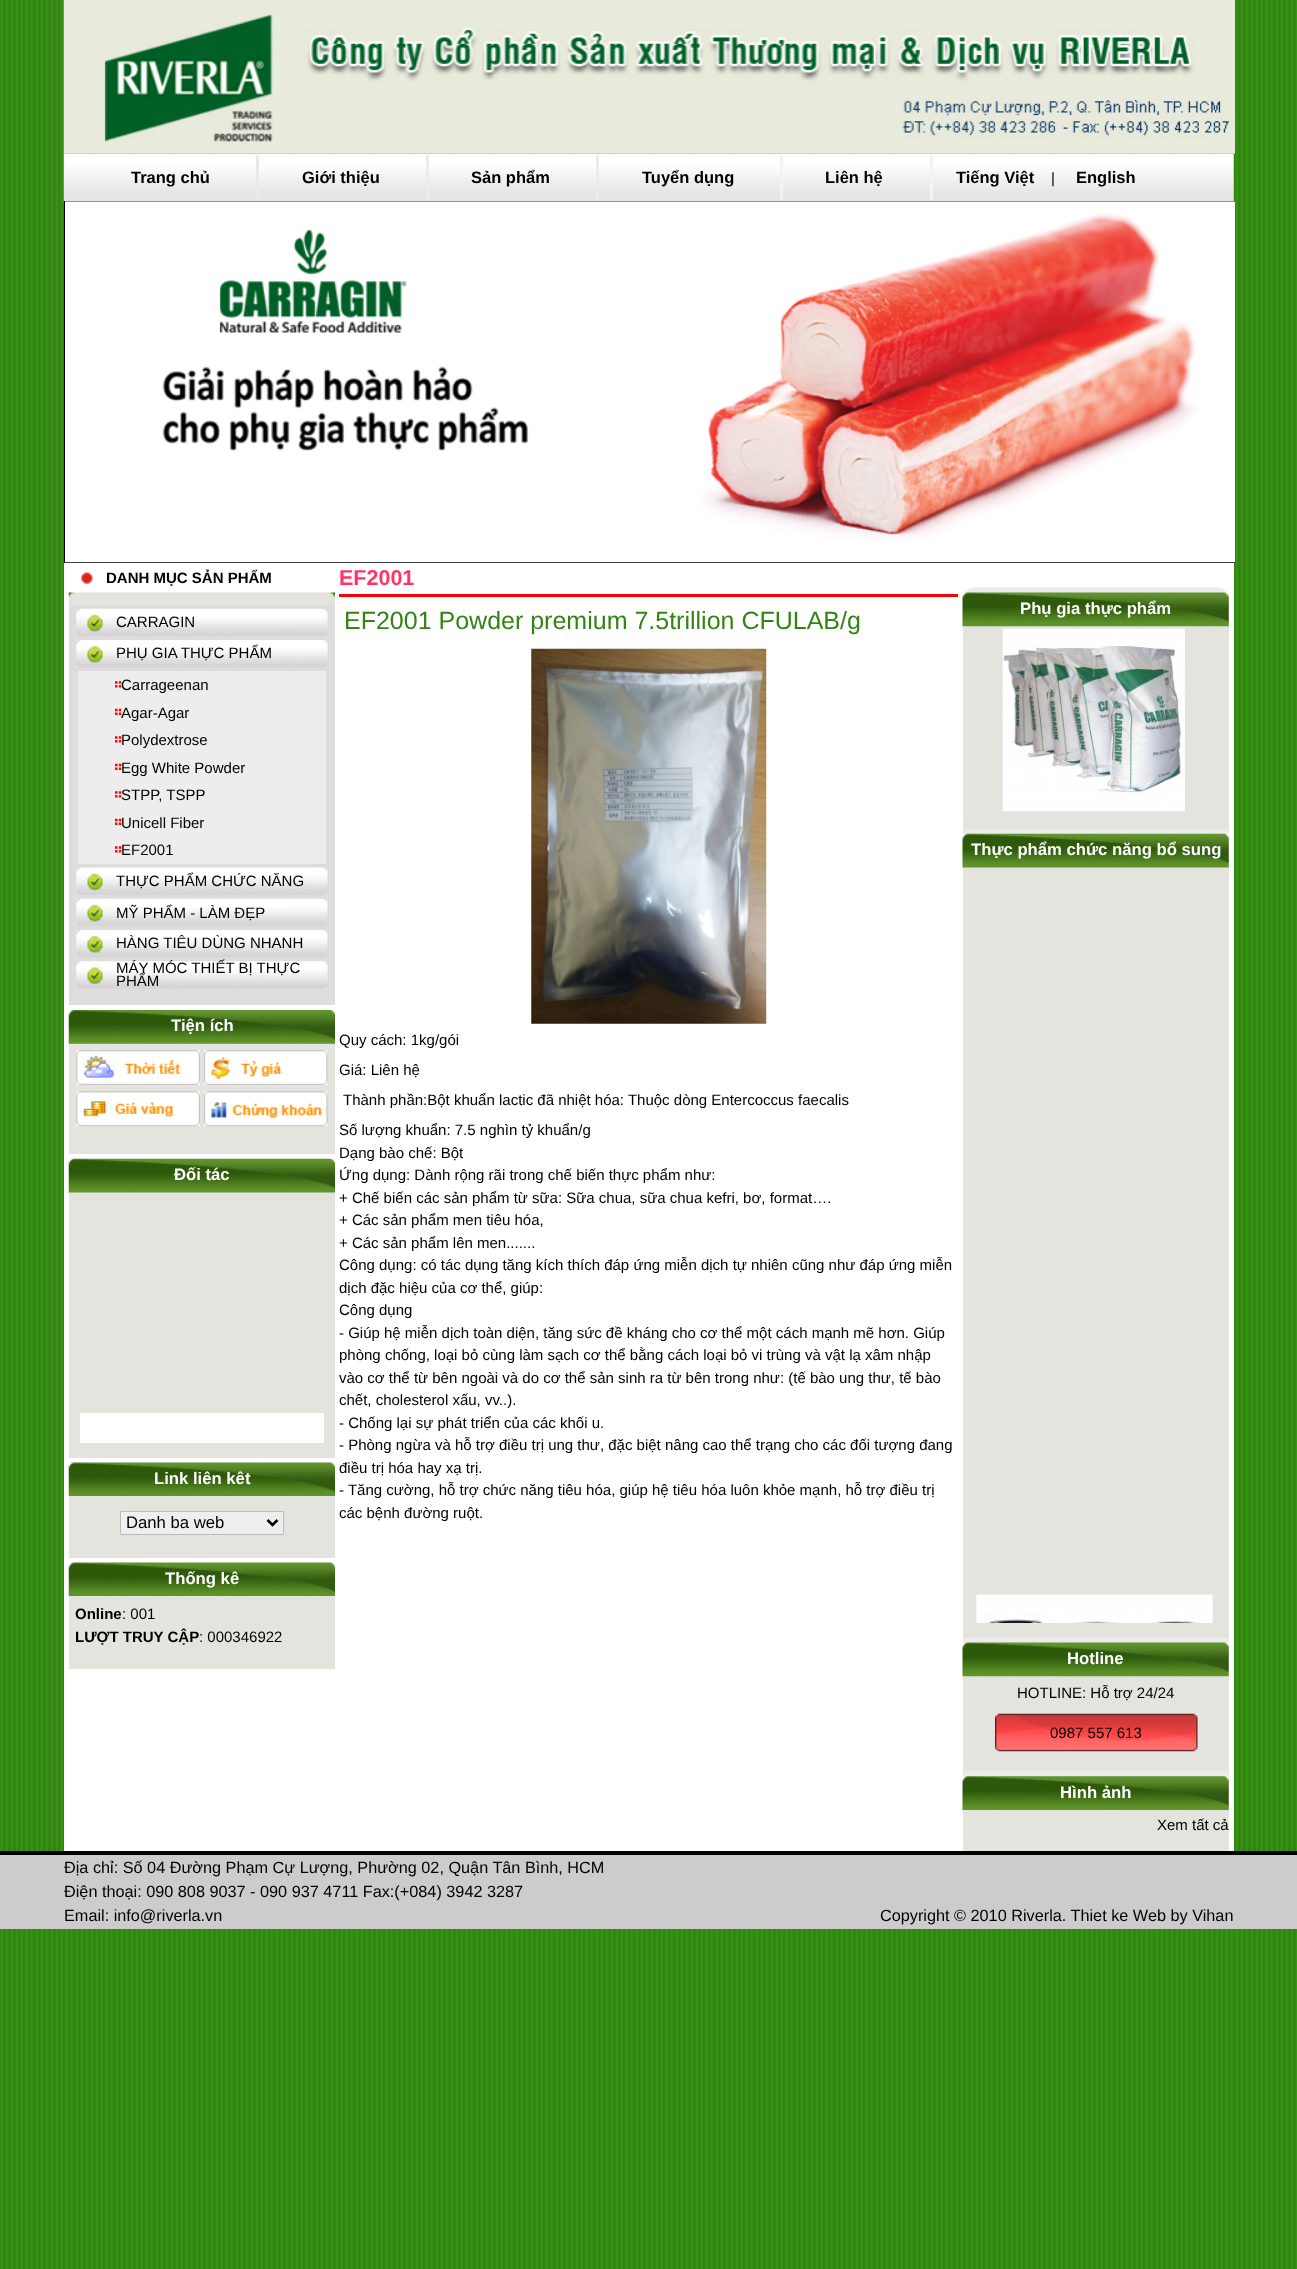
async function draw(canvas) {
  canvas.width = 1297;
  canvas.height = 2269;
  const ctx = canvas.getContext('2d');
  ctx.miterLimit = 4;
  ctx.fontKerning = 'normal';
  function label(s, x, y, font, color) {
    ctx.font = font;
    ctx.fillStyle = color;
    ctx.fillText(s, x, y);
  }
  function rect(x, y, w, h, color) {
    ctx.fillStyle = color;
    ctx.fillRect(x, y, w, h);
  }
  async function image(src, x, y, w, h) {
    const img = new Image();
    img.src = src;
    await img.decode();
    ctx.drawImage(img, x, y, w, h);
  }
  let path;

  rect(0, 0, 1297, 2269, '#fff');
  await image('assets/img1.png', 0, 0, 1297, 2269);
  await image('assets/img3.png', 63, 153, 1171, 49);
  await image('assets/img2.png', 63, 0, 1172, 154);
  label('Trang chủ', 131, 183, 'bold 16.5px Liberation Sans', '#000');
  rect(256, 155, 3, 45, '#eae9e8');
  label('Giới thiệu', 302, 183, 'bold 16.5px Liberation Sans', '#000');
  rect(426, 155, 3, 45, '#ececeb');
  label('Sản phẩm', 471, 183, 'bold 16.5px Liberation Sans', '#000');
  rect(596, 155, 3, 45, '#ececeb');
  label('Tuyển dụng', 642, 183, 'bold 16.5px Liberation Sans', '#000');
  rect(780, 155, 3, 45, '#f3f3f2');
  label('Liên hệ', 825, 183, 'bold 16.5px Liberation Sans', '#000');
  rect(930, 155, 3, 45, '#f3f3f2');
  label('Tiếng Việt', 956, 183, 'bold 16.5px Liberation Sans', '#000');
  label('|', 1051, 183, '15px Liberation Sans', '#000');
  label('English', 1076, 183, 'bold 16.5px Liberation Sans', '#000');
  rect(64, 201, 1171, 362, '#000');
  await image('assets/img4.png', 65, 201, 1170, 362);
  rect(64, 563, 1170, 1288, '#fff');
  await image('assets/img5.png', 81, 572, 12, 12);
  label('DANH MỤC SẢN PHẨM', 106, 583, 'bold 15px Liberation Sans', '#000');
  rect(69, 605, 266, 400, '#ddd');
  await image('assets/img6.png', 68, 592, 267, 13);
  await image('assets/img7.png', 76, 608, 252, 29);
  label('CARRAGIN', 116, 627, '15px Liberation Sans', '#000');
  await image('assets/img8.png', 76, 640, 252, 28);
  label('PHỤ GIA THỰC PHẨM', 116, 658, '15px Liberation Sans', '#000');
  rect(78, 671, 248, 193, '#ededed');
  await image('assets/img9.png', 115, 681, 7, 7);
  label('Carrageenan', 121, 690, '15px Liberation Sans', '#000');
  await image('assets/img10.png', 115, 708, 7, 7);
  label('Agar-Agar', 121, 718, '15px Liberation Sans', '#000');
  await image('assets/img9.png', 115, 736, 7, 7);
  label('Polydextrose', 121, 745, '15px Liberation Sans', '#000');
  await image('assets/img10.png', 115, 763, 7, 7);
  label('Egg White Powder', 121, 773, '15px Liberation Sans', '#000');
  await image('assets/img9.png', 115, 791, 7, 7);
  label('STPP, TSPP', 121, 800, '15px Liberation Sans', '#000');
  await image('assets/img10.png', 115, 818, 7, 7);
  label('Unicell Fiber', 121, 828, '15px Liberation Sans', '#000');
  await image('assets/img9.png', 115, 846, 7, 7);
  label('EF2001', 121, 855, '15px Liberation Sans', '#000');
  await image('assets/img11.png', 76, 867, 252, 28);
  label('THỰC PHẨM CHỨC NĂNG', 116, 886, '15px Liberation Sans', '#000');
  await image('assets/img7.png', 76, 898, 252, 29);
  label('MỸ PHẨM - LÀM ĐẸP', 116, 918, '15px Liberation Sans', '#000');
  await image('assets/img8.png', 76, 930, 252, 28);
  label('HÀNG TIÊU DÙNG NHANH', 116, 948, '15px Liberation Sans', '#000');
  await image('assets/img12.png', 76, 961, 252, 28);
  label('MÁY MÓC THIẾT BỊ THỰC', 116, 973, '15px Liberation Sans', '#000');
  label('PHẨM', 116, 986, '15px Liberation Sans', '#000');
  rect(69, 1043, 266, 111, '#e4e3de');
  await image('assets/img13.png', 68, 1010, 267, 34);
  label('Tiện ích', 171, 1031, 'bold 16.7px Liberation Sans', '#fff');
  await image('assets/img14.png', 76, 1050, 124, 35);
  await image('assets/img15.png', 203, 1050, 125, 35);
  await image('assets/img16.png', 76, 1091, 124, 36);
  await image('assets/img17.png', 203, 1091, 125, 36);
  rect(69, 1192, 266, 266, '#e4e3de');
  await image('assets/img18.png', 68, 1158, 267, 35);
  label('Đối tác', 174, 1180, 'bold 16.7px Liberation Sans', '#fff');
  rect(80, 1413, 244, 30, '#fff');
  rect(69, 1543, 266, 15, '#e4e3de');
  await image('assets/img19.png', 68, 1462, 267, 35);
  label('Link liên kêt', 154, 1484, 'bold 16.7px Liberation Sans', '#fff');
  rect(69, 1496, 266, 47, '#e4e3de');
  ctx.fillStyle = '#efefef';
  ctx.beginPath();
  ctx.rect(120.5, 1511.5, 163, 23);
  ctx.fill();
  ctx.strokeStyle = '#bbb';
  ctx.stroke();
  path = new Path2D('M267.5 1520L272.5 1525L277.5 1520');
  ctx.strokeStyle = '#000';
  ctx.lineWidth = 2.5;
  ctx.stroke(path);
  label('Danh ba web', 126, 1528, '16.7px Liberation Sans', '#000');
  rect(69, 1654, 266, 15, '#e4e3de');
  await image('assets/img20.png', 68, 1562, 267, 35);
  label('Thống kê', 165, 1584, 'bold 16.7px Liberation Sans', '#fff');
  rect(69, 1596, 266, 58, '#e4e3de');
  label('Online', 75, 1619, 'bold 15px Liberation Sans', '#000');
  label(': 001', 122, 1619, '15px Liberation Sans', '#000');
  label('LƯỢT TRUY CẬP', 75, 1642, 'bold 15px Liberation Sans', '#000');
  label(': 000346922', 199, 1642, '15px Liberation Sans', '#000');
  rect(339, 594, 619, 3, '#f70303');
  label('EF2001', 339, 585, 'bold 21.5px Liberation Sans', '#f36');
  label('EF2001 Powder premium 7.5trillion CFULAB/g', 344, 629, '25px Liberation Sans', '#348415');
  await image('assets/img21.png', 531, 648, 236, 376);
  label('Quy cách: 1kg/gói', 339, 1045, '15px Liberation Sans', '#000');
  label('Giá: Liên hệ', 339, 1075, '15px Liberation Sans', '#000');
  label('Thành phần:Bột khuẩn lactic đã nhiệt hóa: Thuộc dòng Entercoccus faecalis', 343, 1105, '15px Liberation Sans', '#000');
  label('Số lượng khuẩn: 7.5 nghìn tỷ khuẩn/g', 339, 1135, '15px Liberation Sans', '#000');
  label('Dạng bào chế: Bột', 339, 1158, '15px Liberation Sans', '#000');
  label('Ứng dụng: Dành rộng rãi trong chế biến thực phẩm như:', 339, 1180, '15px Liberation Sans', '#000');
  label('+ Chế biến các sản phẩm từ sữa: Sữa chua, sữa chua kefri, bơ, format….', 339, 1203, '15px Liberation Sans', '#000');
  label('+ Các sản phẩm men tiêu hóa,', 339, 1225, '15px Liberation Sans', '#000');
  label('+ Các sản phẩm lên men.......', 339, 1248, '15px Liberation Sans', '#000');
  label('Công dụng: có tác dụng tăng kích thích đáp ứng miễn dịch tự nhiên cũng như đáp ứng miễn', 339, 1270, '15px Liberation Sans', '#000');
  label('dịch đặc hiệu của cơ thể, giúp:', 339, 1293, '15px Liberation Sans', '#000');
  label('Công dụng', 339, 1315, '15px Liberation Sans', '#000');
  label('- Giúp hệ miễn dịch toàn diện, tăng sức đề kháng cho cơ thể một cách mạnh mẽ hơn. Giúp', 339, 1338, '15px Liberation Sans', '#000');
  label('phòng chống, loại bỏ cùng làm sạch cơ thể bằng cách loại bỏ vi trùng và vật lạ xâm nhập', 339, 1360, '15px Liberation Sans', '#000');
  label('vào cơ thể từ bên ngoài và do cơ thể sản sinh ra từ bên trong như: (tế bào ung thư, tế bào', 339, 1383, '15px Liberation Sans', '#000');
  label('chết, cholesterol xấu, vv..).', 339, 1405, '15px Liberation Sans', '#000');
  label('- Chống lại sự phát triển của các khối u.', 339, 1428, '15px Liberation Sans', '#000');
  label('- Phòng ngừa và hỗ trợ điều trị ung thư, đặc biệt nâng cao thể trạng cho các đối tượng đang', 339, 1450, '15px Liberation Sans', '#000');
  label('điều trị hóa hay xạ trị.', 339, 1473, '15px Liberation Sans', '#000');
  label('- Tăng cường, hỗ trợ chức năng tiêu hóa, giúp hệ tiêu hóa luôn khỏe mạnh, hỗ trợ điều trị', 339, 1495, '15px Liberation Sans', '#000');
  label('các bệnh đường ruột.', 339, 1518, '15px Liberation Sans', '#000');
  rect(963, 588, 266, 1188, '#ebebeb');
  await image('assets/img22.png', 962, 587, 267, 15);
  rect(963, 593, 266, 236, '#e4e3de');
  await image('assets/img23.png', 962, 592, 267, 35);
  label('Phụ gia thực phẩm', 1020, 614, 'bold 16.7px Liberation Sans', '#fff');
  await image('assets/img24.png', 1002, 628, 183, 184);
  rect(963, 834, 266, 804, '#e4e3de');
  await image('assets/img25.png', 962, 833, 267, 35);
  label('Thực phẩm chức năng bổ sung', 971, 855, 'bold 16.7px Liberation Sans', '#fff');
  await image('assets/img26.png', 975, 1594, 238, 29);
  rect(963, 1643, 266, 128, '#e4e3de');
  await image('assets/img27.png', 962, 1642, 267, 35);
  label('Hotline', 1067, 1664, 'bold 16.7px Liberation Sans', '#fff');
  label('HOTLINE: Hỗ trợ 24/24', 1017, 1698, '15px Liberation Sans', '#000');
  await image('assets/img28.png', 995, 1713, 203, 39);
  label('0987 557 613', 1050, 1738, '15px Liberation Sans', '#000');
  rect(963, 1776, 266, 75, '#e4e3de');
  await image('assets/img29.png', 962, 1776, 267, 34);
  label('Hình ảnh', 1060, 1798, 'bold 16.7px Liberation Sans', '#fff');
  label('Xem tất cả', 1157, 1830, '15px Liberation Sans', '#000');
  rect(0, 1855, 1297, 74, '#ccc');
  rect(0, 1851, 1297, 4, '#000');
  label('Địa chỉ: Số 04 Đường Phạm Cự Lượng, Phường 02, Quận Tân Bình, HCM', 64, 1873, '16.25px Liberation Sans', '#000');
  label('Điện thoại: 090 808 9037 - 090 937 4711 Fax:(+084) 3942 3287', 64, 1897, '16.25px Liberation Sans', '#000');
  label('Email: info@riverla.vn', 64, 1921, '16.25px Liberation Sans', '#000');
  label('Copyright © 2010 Riverla. Thiet ke Web by Vihan', 880, 1921, '16.25px Liberation Sans', '#000');
}

draw(document.querySelector('canvas'));
